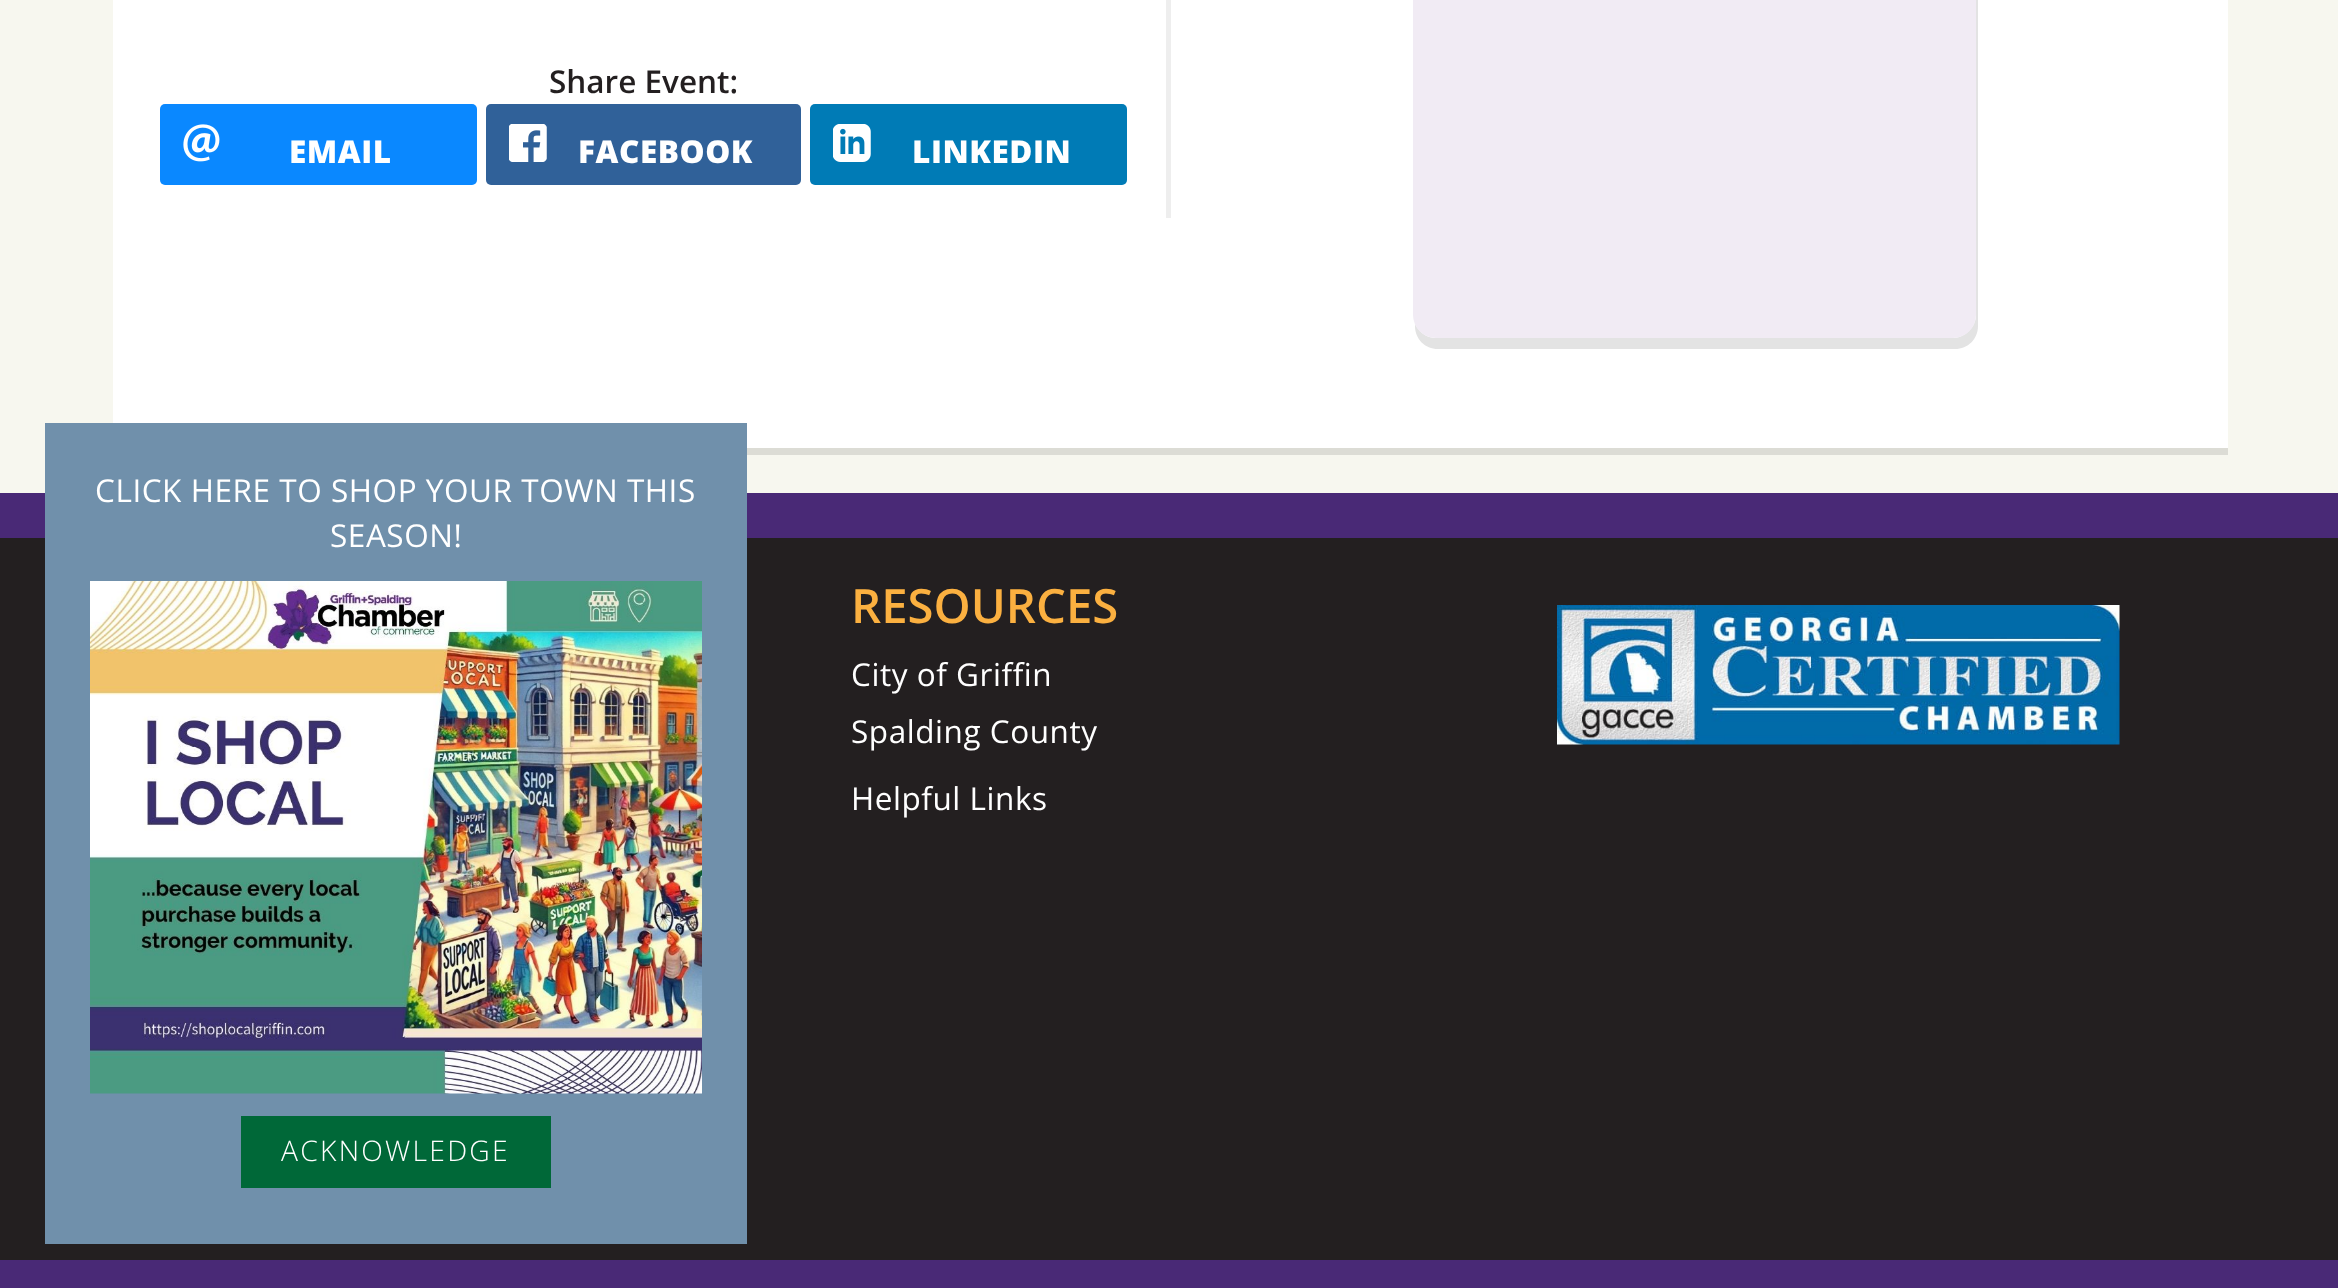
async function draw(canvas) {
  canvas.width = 2338;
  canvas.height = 1288;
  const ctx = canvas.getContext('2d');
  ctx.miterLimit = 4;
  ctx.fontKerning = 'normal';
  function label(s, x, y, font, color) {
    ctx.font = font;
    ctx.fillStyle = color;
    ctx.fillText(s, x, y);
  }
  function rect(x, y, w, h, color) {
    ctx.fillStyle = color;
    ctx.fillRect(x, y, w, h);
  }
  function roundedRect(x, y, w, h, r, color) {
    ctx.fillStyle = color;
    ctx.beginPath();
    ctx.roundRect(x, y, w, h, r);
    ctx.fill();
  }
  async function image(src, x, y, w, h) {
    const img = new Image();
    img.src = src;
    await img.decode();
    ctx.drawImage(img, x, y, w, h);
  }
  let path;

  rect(0, 0, 2338, 1288, '#f7f7ef');
  ctx.fillStyle = '#dcdcd5';
  path = new Path2D('M113 448V455H2228V-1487V448Z');
  ctx.fill(path);
  rect(113, 0, 2115, 448, '#fff');
  rect(1166, 0, 5, 218, '#eee');
  label('Share Event:', 549, 93, '600 31.5px Open Sans', '#231f20');
  roundedRect(160, 104, 317, 81, 5, '#0a88ff');
  await image('assets/img1.png', 183, 124, 37, 38);
  ctx.letterSpacing = '0.55px';
  label('EMAIL', 289, 163, '800 31.5px Open Sans', '#fff');
  roundedRect(486, 104, 315, 81, 5, '#306199');
  await image('assets/img2.png', 509, 124, 38, 38);
  label('FACEBOOK', 578, 163, '800 31.5px Open Sans', '#fff');
  roundedRect(810, 104, 317, 81, 5, '#007bb6');
  await image('assets/img3.png', 833, 124, 38, 38);
  label('LINKEDIN', 912, 163, '800 31.5px Open Sans', '#fff');
  ctx.fillStyle = '#e3e3e3';
  path = new Path2D('M1415 324V326C1415 339 1425 349 1438 349H1955C1968 349 1978 339 1978 326V-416C1978-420 1977-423 1976-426V315C1976 327 1965 338 1953 338H1436C1426 338 1419 332 1415 324Z');
  ctx.fill(path);
  roundedRect(1413, -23, 563, 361, 23, '#f1ebf4');
  rect(0, 493, 2338, 45, '#492976');
  rect(0, 538, 2338, 722, '#231f20');
  rect(45, 423, 702, 821, '#7090ab');
  label('CLICK HERE TO SHOP YOUR TOWN THIS', 95, 502, '31.5px Open Sans', '#fff');
  label('SEASON!', 330, 547, '31.5px Open Sans', '#fff');
  await image('assets/img4.png', 90, 581, 612, 513);
  rect(241, 1116, 310, 72, '#006838');
  ctx.letterSpacing = '2.25px';
  label('ACKNOWLEDGE', 281, 1161, '300 28.25px Open Sans', '#fff');
  ctx.letterSpacing = '0px';
  label('RESOURCES', 851, 623, '600 47.25px Open Sans', '#fbb040');
  ctx.letterSpacing = '0.55px';
  label('City of Griffin', 851, 686, '31.5px Open Sans', '#fff');
  label('Spalding County', 851, 743, '31.5px Open Sans', '#fff');
  label('Helpful Links', 851, 810, '31.5px Open Sans', '#fff');
  await image('assets/img5.png', 1557, 605, 563, 140);
  rect(0, 1260, 2338, 28, '#492976');
}

draw(document.querySelector('canvas'));
